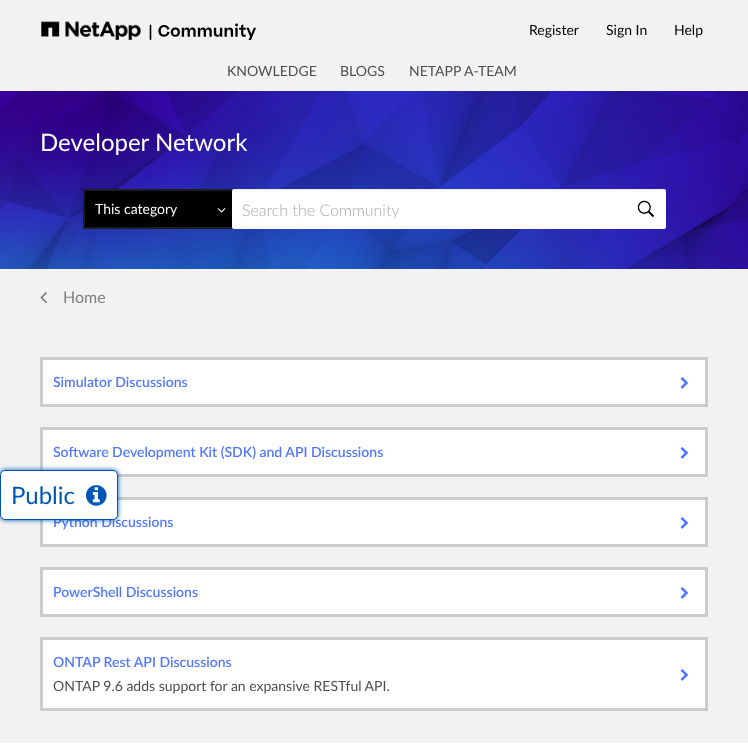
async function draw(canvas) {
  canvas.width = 748;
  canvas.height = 756;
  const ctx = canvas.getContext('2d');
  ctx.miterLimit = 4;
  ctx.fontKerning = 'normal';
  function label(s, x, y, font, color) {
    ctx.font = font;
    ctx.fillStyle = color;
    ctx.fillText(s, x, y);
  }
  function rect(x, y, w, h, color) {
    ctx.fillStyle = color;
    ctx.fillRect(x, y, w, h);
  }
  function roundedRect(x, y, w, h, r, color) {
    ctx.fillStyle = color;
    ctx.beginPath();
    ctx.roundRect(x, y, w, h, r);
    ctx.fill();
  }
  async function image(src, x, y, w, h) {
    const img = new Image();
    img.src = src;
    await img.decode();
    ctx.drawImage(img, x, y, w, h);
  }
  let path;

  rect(0, 0, 748, 756, '#fff');
  rect(0, 0, 748, 91, '#f2f2f2');
  await image('assets/img1.png', 41, 21, 215, 19);
  label('Register', 529, 35, '14px Lato', '#000');
  label('Sign In', 606, 35, '14px Lato', '#000');
  label('Help', 674, 35, '14px Lato', '#000');
  label('KNOWLEDGE', 227, 76, '14px Lato', '#4d4d4d');
  label('BLOGS', 340, 76, '14px Lato', '#4d4d4d');
  label('NETAPP A-TEAM', 409, 76, '14px Lato', '#4d4d4d');
  rect(0, 269, 748, 474, '#f2f2f2');
  await image('assets/img2.png', 0, 91, 748, 178);
  label('Developer Network', 40, 151, '24px Lato', '#fff');
  rect(83, 189, 149, 40, '#000');
  ctx.fillStyle = '#1d1d1d';
  path = new Path2D('M83 189H232V191H85Z');
  ctx.fill(path);
  path = new Path2D('M232 229H83L85 227H232Z');
  ctx.fill(path);
  ctx.fillStyle = '#c4c4c426';
  path = new Path2D('M83 229V189L85 191V227Z');
  ctx.fill(path);
  label('This category', 95, 214, '14px Lato', '#fff');
  await image('assets/img3.png', 217, 208, 9, 5);
  roundedRect(232, 189, 434, 40, 2, '#fff');
  ctx.fillStyle = '#00000012';
  path = new Path2D('M234 190H664C665 190 666 191 666 192C666 191 666 189 664 189H234L232 190V192C232 191 233 190 234 190Z');
  ctx.fill(path);
  label('Search the Community', 242, 216, '300 16px Lato', '#a9a9a9');
  await image('assets/img4.png', 637, 200, 18, 18);
  await image('assets/img5.png', 40, 292, 7, 11);
  label('Home', 63, 303, '16px Lato', '#808080');
  ctx.fillStyle = '#fff';
  ctx.beginPath();
  ctx.rect(41.5, 358.5, 665, 47);
  ctx.fill();
  ctx.strokeStyle = '#ccc';
  ctx.lineWidth = 3;
  ctx.stroke();
  label('Simulator Discussions', 53, 387, '600 14px Lato', '#5278ff');
  await image('assets/img6.png', 680, 377, 9, 12);
  ctx.fillStyle = '#fff';
  ctx.beginPath();
  ctx.rect(41.5, 428.5, 665, 47);
  ctx.fill();
  ctx.stroke();
  label('Software Development Kit (SDK) and API Discussions', 53, 457, '600 14px Lato', '#5278ff');
  await image('assets/img6.png', 680, 447, 9, 12);
  ctx.fillStyle = '#fff';
  ctx.beginPath();
  ctx.rect(41.5, 498.5, 665, 47);
  ctx.fill();
  ctx.stroke();
  label('Python Discussions', 53, 527, '600 14px Lato', '#5278ff');
  await image('assets/img6.png', 680, 517, 9, 12);
  ctx.fillStyle = '#fff';
  ctx.beginPath();
  ctx.rect(41.5, 568.5, 665, 47);
  ctx.fill();
  ctx.stroke();
  label('PowerShell Discussions', 53, 597, '600 14px Lato', '#5278ff');
  await image('assets/img6.png', 680, 587, 9, 12);
  ctx.fillStyle = '#fff';
  ctx.beginPath();
  ctx.rect(41.5, 638.5, 665, 71);
  ctx.fill();
  ctx.stroke();
  label('ONTAP Rest API Discussions', 53, 667, '600 14px Lato', '#5278ff');
  await image('assets/img6.png', 680, 669, 9, 12);
  label('ONTAP 9.6 adds support for an expansive RESTful API.', 53, 691, '14px Lato', '#4d4d4d');
  ctx.fillStyle = '#0057b7';
  ctx.filter = 'blur(2.5px)';
  ctx.beginPath();
  ctx.roundRect(0, 470, 118, 50, 5);
  ctx.fill();
  ctx.filter = 'none';
  ctx.fillStyle = '#fff';
  ctx.beginPath();
  ctx.roundRect(0.5, 470.5, 117, 49, 4.5);
  ctx.fill();
  ctx.strokeStyle = '#0057b7';
  ctx.lineWidth = 1;
  ctx.stroke();
  label('Public', 11, 504, '24px Lato', '#0057b7');
  await image('assets/img7.png', 86, 485, 21, 21);
}

draw(document.querySelector('canvas'));
